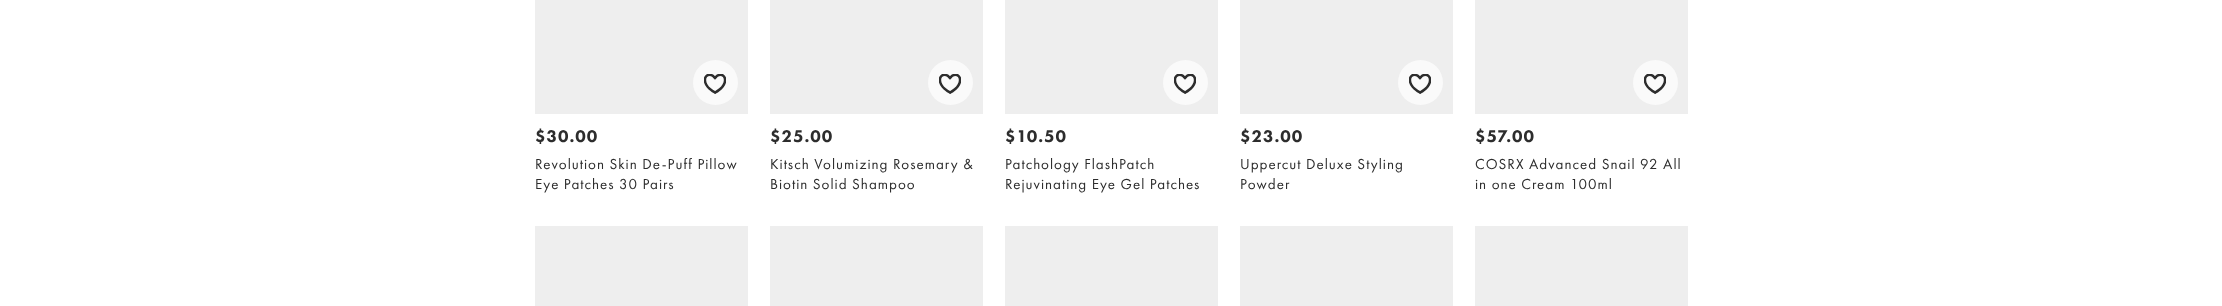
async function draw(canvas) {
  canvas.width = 2222;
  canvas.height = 306;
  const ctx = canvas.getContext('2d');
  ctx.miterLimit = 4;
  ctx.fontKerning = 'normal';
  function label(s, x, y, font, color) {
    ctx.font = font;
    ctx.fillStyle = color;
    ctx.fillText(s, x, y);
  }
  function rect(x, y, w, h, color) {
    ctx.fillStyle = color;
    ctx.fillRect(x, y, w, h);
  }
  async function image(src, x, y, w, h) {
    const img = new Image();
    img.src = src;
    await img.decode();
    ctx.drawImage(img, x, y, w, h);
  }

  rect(0, 0, 2222, 306, '#fff');
  rect(535, 0, 213, 114, '#eee');
  ctx.fillStyle = '#fafafa';
  ctx.beginPath();
  ctx.arc(715.5, 82.5, 22.5, 0, 2 * Math.PI);
  ctx.fill();
  await image('assets/img1.png', 704, 74, 22, 20);
  ctx.letterSpacing = '1px';
  label('$30.00', 535, 142, '900 17.5px Futura PT', '#2d2d2d');
  label('Revolution Skin De-Puff Pillow', 535, 169, '15px Futura PT', '#2d2d2d');
  label('Eye Patches 30 Pairs', 535, 189, '15px Futura PT', '#2d2d2d');
  rect(770, 0, 213, 114, '#eee');
  ctx.fillStyle = '#fafafa';
  ctx.beginPath();
  ctx.arc(950.5, 82.5, 22.5, 0, 2 * Math.PI);
  ctx.fill();
  await image('assets/img1.png', 939, 74, 22, 20);
  label('$25.00', 770, 142, '900 17.5px Futura PT', '#2d2d2d');
  label('Kitsch Volumizing Rosemary &', 770, 169, '15px Futura PT', '#2d2d2d');
  label('Biotin Solid Shampoo', 770, 189, '15px Futura PT', '#2d2d2d');
  rect(1005, 0, 213, 114, '#eee');
  ctx.fillStyle = '#fafafa';
  ctx.beginPath();
  ctx.arc(1185.5, 82.5, 22.5, 0, 2 * Math.PI);
  ctx.fill();
  await image('assets/img1.png', 1174, 74, 22, 20);
  label('$10.50', 1005, 142, '900 17.5px Futura PT', '#2d2d2d');
  label('Patchology FlashPatch', 1005, 169, '15px Futura PT', '#2d2d2d');
  label('Rejuvinating Eye Gel Patches', 1005, 189, '15px Futura PT', '#2d2d2d');
  rect(1240, 0, 213, 114, '#eee');
  ctx.fillStyle = '#fafafa';
  ctx.beginPath();
  ctx.arc(1420.5, 82.5, 22.5, 0, 2 * Math.PI);
  ctx.fill();
  await image('assets/img1.png', 1409, 74, 22, 20);
  label('$23.00', 1240, 142, '900 17.5px Futura PT', '#2d2d2d');
  label('Uppercut Deluxe Styling', 1240, 169, '15px Futura PT', '#2d2d2d');
  label('Powder', 1240, 189, '15px Futura PT', '#2d2d2d');
  rect(1475, 0, 213, 114, '#eee');
  ctx.fillStyle = '#fafafa';
  ctx.beginPath();
  ctx.arc(1655.5, 82.5, 22.5, 0, 2 * Math.PI);
  ctx.fill();
  await image('assets/img1.png', 1644, 74, 22, 20);
  label('$57.00', 1475, 142, '900 17.5px Futura PT', '#2d2d2d');
  label('COSRX Advanced Snail 92 All', 1475, 169, '15px Futura PT', '#2d2d2d');
  label('in one Cream 100ml', 1475, 189, '15px Futura PT', '#2d2d2d');
  rect(535, 226, 213, 80, '#eee');
  rect(770, 226, 213, 80, '#eee');
  rect(1005, 226, 213, 80, '#eee');
  rect(1240, 226, 213, 80, '#eee');
  rect(1475, 226, 213, 80, '#eee');
}

draw(document.querySelector('canvas'));
